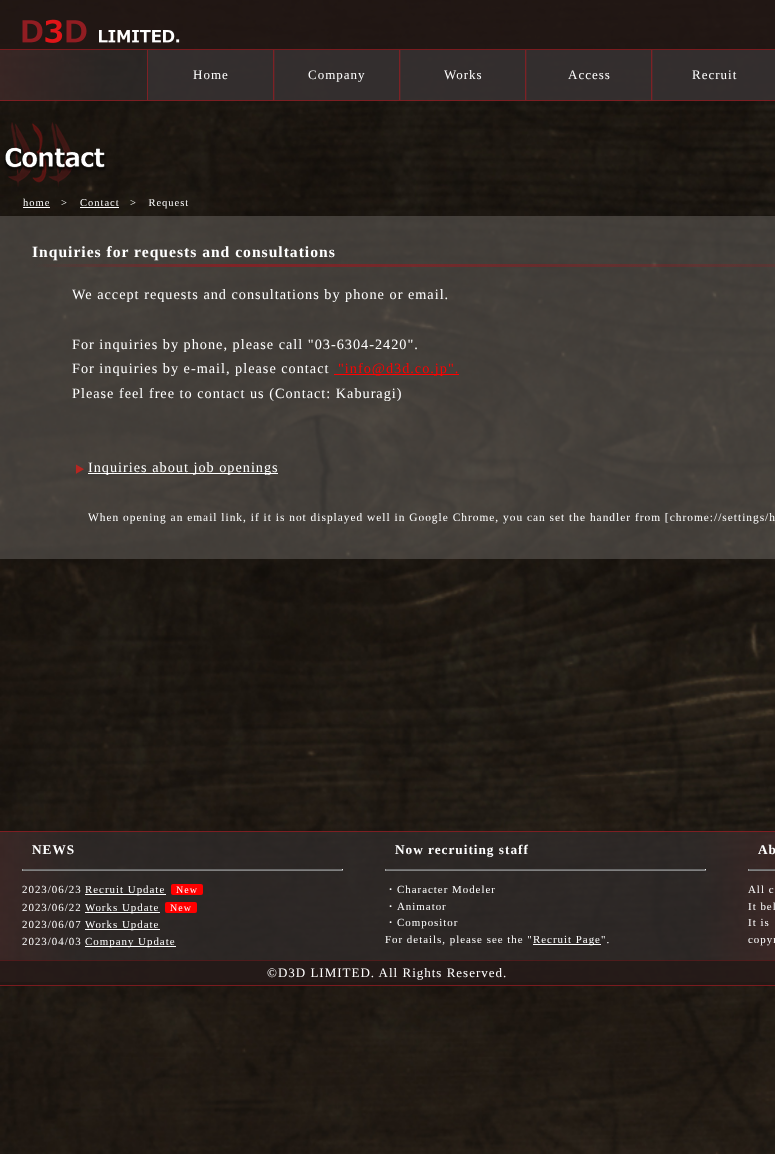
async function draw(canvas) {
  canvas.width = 775;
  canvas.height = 1154;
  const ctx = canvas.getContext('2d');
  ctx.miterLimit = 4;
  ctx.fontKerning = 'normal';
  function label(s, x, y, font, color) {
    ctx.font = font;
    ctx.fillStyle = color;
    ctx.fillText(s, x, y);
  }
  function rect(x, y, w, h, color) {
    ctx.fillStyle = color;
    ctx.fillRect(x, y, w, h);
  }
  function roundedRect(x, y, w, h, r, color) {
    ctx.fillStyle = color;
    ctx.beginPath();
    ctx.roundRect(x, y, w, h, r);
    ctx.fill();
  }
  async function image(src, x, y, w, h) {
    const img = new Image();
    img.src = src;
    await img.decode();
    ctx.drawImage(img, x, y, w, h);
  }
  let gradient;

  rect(0, 0, 775, 1154, '#fff');
  await image('assets/img1.png', 0, 0, 775, 1154);
  rect(0, 0, 775, 50, '#231815cc');
  rect(0, 49, 775, 1, '#911d22cc');
  await image('assets/img2.png', 22, 19, 158, 24);
  rect(0, 100, 775, 1, '#911d22cc');
  rect(148, 50, 125, 50, '#373232bf');
  rect(274, 50, 1, 50, '#911d22cc');
  rect(147, 50, 1, 50, '#7e2125');
  ctx.letterSpacing = '1px';
  label('Home', 193, 79, '13px Liberation Serif', '#fff');
  rect(274, 50, 125, 50, '#373232bf');
  rect(400, 50, 1, 50, '#7d1f23');
  rect(273, 50, 1, 50, '#7e2125');
  label('Company', 308, 79, '13px Liberation Serif', '#fff');
  rect(400, 50, 125, 50, '#373232bf');
  rect(526, 50, 1, 50, '#7d1f23');
  rect(399, 50, 1, 50, '#7e2125');
  label('Works', 444, 79, '13px Liberation Serif', '#fff');
  rect(526, 50, 125, 50, '#373232bf');
  rect(652, 50, 1, 50, '#911d22cc');
  rect(525, 50, 1, 50, '#7e2125');
  label('Access', 568, 79, '13px Liberation Serif', '#fff');
  rect(652, 50, 123, 50, '#373232bf');
  rect(651, 50, 1, 50, '#7e2125');
  label('Recruit', 692, 79, '13px Liberation Serif', '#fff');
  await image('assets/img3.png', 4, 122, 102, 65);
  label('home', 23, 206, '10.5px Liberation Serif', '#fff');
  rect(23, 207, 27, 1, '#fff');
  label('>', 61, 206, '10.5px Liberation Serif', '#fff');
  label('Contact', 80, 206, '10.5px Liberation Serif', '#fff');
  rect(80, 207, 39, 1, '#fff');
  label('> Request', 130, 206, '10.5px Liberation Serif', '#fff');
  rect(0, 216, 775, 343, '#6c686480');
  label('Inquiries for requests and consultations', 32, 257, 'bold 15.6px Liberation Serif', '#fff');
  gradient = ctx.createLinearGradient(32, 266, 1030, 265);
  gradient.addColorStop(0, '#911d2200');
  gradient.addColorStop(0.2, '#911d22cc');
  gradient.addColorStop(1, '#911d2200');
  ctx.fillStyle = gradient;
  ctx.fillRect(32, 264, 743, 3);
  label('We accept requests and consultations by phone or email.', 72, 299, '14.25px Liberation Serif', '#fff');
  label('For inquiries by phone, please call "03-6304-2420".', 72, 349, '14.25px Liberation Serif', '#fff');
  label('For inquiries by e-mail, please contact', 72, 373, '14.25px Liberation Serif', '#fff');
  rect(334, 374, 125, 1, '#f00');
  label('"info@d3d.co.jp".', 338, 373, '14.25px Liberation Serif', '#f00');
  label('Please feel free to contact us (Contact: Kaburagi)', 72, 398, '14.25px Liberation Serif', '#fff');
  await image('assets/img4.png', 75, 464, 9, 10);
  rect(88, 473, 190, 1, '#fff');
  label('Inquiries about job openings', 88, 472, '14.25px Liberation Serif', '#fff');
  label('When opening an email link, if it is not displayed well in Google Chrome, you can set the handler from [chrome://settings/h', 88, 521, '11.4px Liberation Serif', '#fff');
  rect(0, 831, 775, 1, '#911d22cc');
  label('NEWS', 32, 854, 'bold 13.25px Liberation Serif', '#fff');
  rect(22, 869, 321, 1, '#696969');
  rect(342, 869, 1, 2, '#eee');
  rect(22, 870, 321, 1, '#808080');
  rect(22, 869, 1, 2, '#9f9f9f');
  label('2023/06/23', 22, 893, '10.9px Liberation Serif', '#fff');
  rect(85, 894, 81, 1, '#fff');
  label('Recruit Update', 85, 893, '10.9px Liberation Serif', '#fff');
  roundedRect(171, 884, 32, 11, 2, '#f00');
  label('New', 176, 893, '10px Liberation Serif', '#fff');
  label('2023/06/22', 22, 911, '10.9px Liberation Serif', '#fff');
  rect(85, 912, 75, 1, '#fff');
  label('Works Update', 85, 911, '10.9px Liberation Serif', '#fff');
  roundedRect(165, 902, 32, 11, 2, '#f00');
  label('New', 170, 911, '10px Liberation Serif', '#fff');
  label('2023/06/07', 22, 928, '10.9px Liberation Serif', '#fff');
  rect(85, 929, 75, 1, '#fff');
  label('Works Update', 85, 928, '10.9px Liberation Serif', '#fff');
  label('2023/04/03', 22, 945, '10.9px Liberation Serif', '#fff');
  rect(85, 946, 91, 1, '#fff');
  label('Company Update', 85, 945, '10.9px Liberation Serif', '#fff');
  label('Now recruiting staff', 395, 854, 'bold 13.25px Liberation Serif', '#fff');
  rect(385, 869, 321, 1, '#696969');
  rect(705, 869, 1, 2, '#eee');
  rect(385, 870, 321, 1, '#808080');
  rect(385, 869, 1, 2, '#9f9f9f');
  label('・', 385, 893, '500 10.9px WenQuanYi Zen Hei', '#fff');
  label('Character Modeler', 397, 893, '10.9px Liberation Serif', '#fff');
  label('・', 385, 910, '500 10.9px WenQuanYi Zen Hei', '#fff');
  label('Animator', 397, 910, '10.9px Liberation Serif', '#fff');
  label('・', 385, 926, '500 10.9px WenQuanYi Zen Hei', '#fff');
  label('Compositor', 397, 926, '10.9px Liberation Serif', '#fff');
  label('For details, please see the "', 385, 943, '10.9px Liberation Serif', '#fff');
  rect(533, 944, 68, 1, '#fff');
  label('Recruit Page".', 533, 943, '10.9px Liberation Serif', '#fff');
  label('Ab', 758, 854, 'bold 13.25px Liberation Serif', '#fff');
  rect(748, 869, 27, 1, '#696969');
  rect(748, 870, 27, 1, '#808080');
  rect(748, 869, 1, 2, '#9f9f9f');
  label('All c', 748, 893, '10.9px Liberation Serif', '#fff');
  label('It bel', 748, 910, '10.9px Liberation Serif', '#fff');
  label('It is', 748, 926, '10.9px Liberation Serif', '#fff');
  label('copyr', 748, 943, '10.9px Liberation Serif', '#fff');
  rect(0, 960, 775, 26, '#231815cc');
  rect(0, 960, 775, 1, '#911d2266');
  rect(0, 985, 775, 1, '#911d22cc');
  label('©D3D LIMITED. All Rights Reserved.', 267, 977, '13px Liberation Serif', '#fff');
}

draw(document.querySelector('canvas'));
